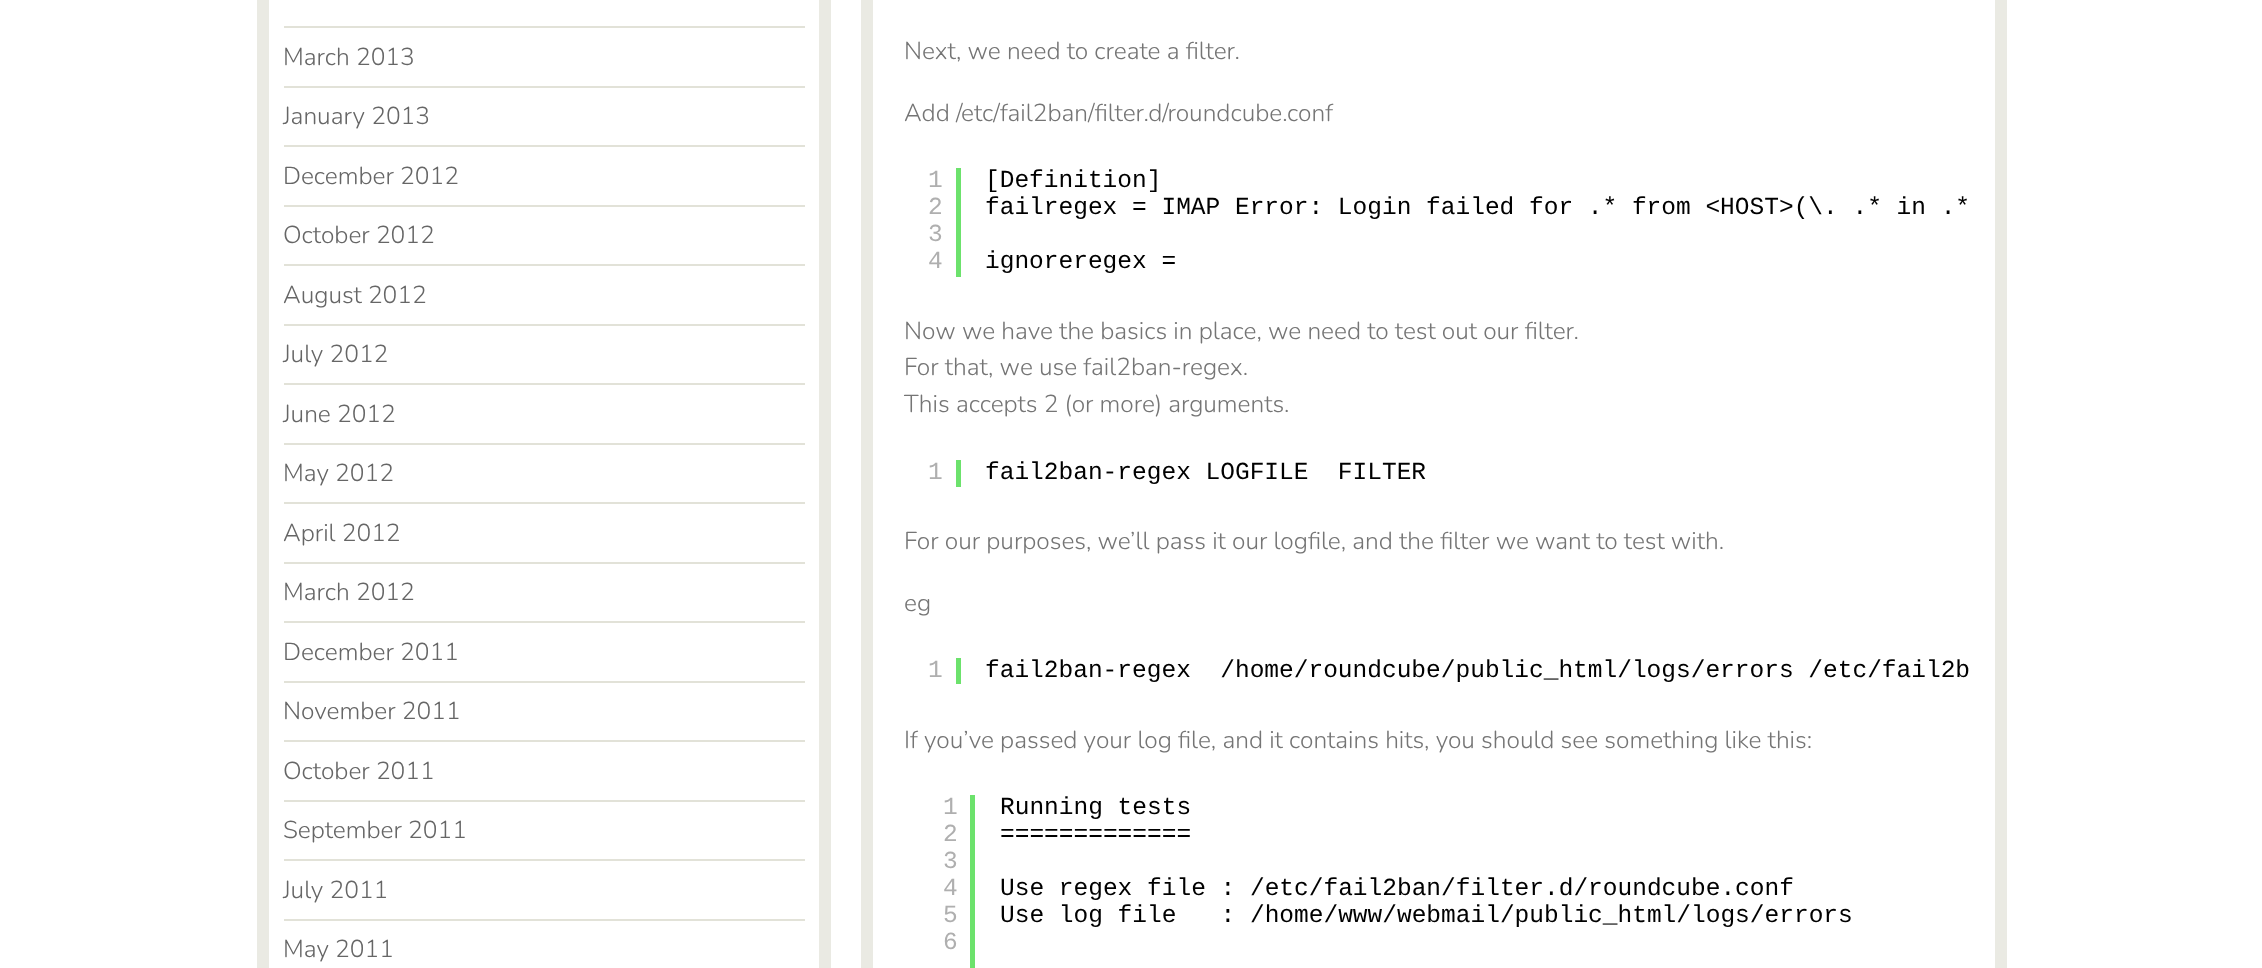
async function draw(canvas) {
  canvas.width = 2262;
  canvas.height = 968;
  const ctx = canvas.getContext('2d');
  ctx.miterLimit = 4;
  ctx.fontKerning = 'normal';
  function label(s, x, y, font, color) {
    ctx.font = font;
    ctx.fillStyle = color;
    ctx.fillText(s, x, y);
  }
  function rect(x, y, w, h, color) {
    ctx.fillStyle = color;
    ctx.fillRect(x, y, w, h);
  }

  rect(0, 0, 2262, 968, '#fff');
  ctx.strokeStyle = '#eaeae3';
  ctx.lineWidth = 12;
  ctx.strokeRect(263, -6, 562, 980);
  rect(284, 26, 521, 2, '#e2e2d8');
  rect(284, 86, 521, 2, '#e2e2d8');
  label('March 2013', 283, 65, '300 24.5px Nunito', '#666');
  rect(284, 145, 521, 2, '#e2e2d8');
  label('January 2013', 283, 124, '300 24.5px Nunito', '#666');
  rect(284, 205, 521, 2, '#e2e2d8');
  label('December 2012', 283, 184, '300 24.5px Nunito', '#666');
  rect(284, 264, 521, 2, '#e2e2d8');
  label('October 2012', 283, 243, '300 24.5px Nunito', '#666');
  rect(284, 324, 521, 2, '#e2e2d8');
  label('August 2012', 283, 303, '300 24.5px Nunito', '#666');
  rect(284, 383, 521, 2, '#e2e2d8');
  label('July 2012', 283, 362, '300 24.5px Nunito', '#666');
  rect(284, 443, 521, 2, '#e2e2d8');
  label('June 2012', 283, 422, '300 24.5px Nunito', '#666');
  rect(284, 502, 521, 2, '#e2e2d8');
  label('May 2012', 283, 481, '300 24.5px Nunito', '#666');
  rect(284, 562, 521, 2, '#e2e2d8');
  label('April 2012', 283, 541, '300 24.5px Nunito', '#666');
  rect(284, 621, 521, 2, '#e2e2d8');
  label('March 2012', 283, 600, '300 24.5px Nunito', '#666');
  rect(284, 681, 521, 2, '#e2e2d8');
  label('December 2011', 283, 660, '300 24.5px Nunito', '#666');
  rect(284, 740, 521, 2, '#e2e2d8');
  label('November 2011', 283, 719, '300 24.5px Nunito', '#666');
  rect(284, 800, 521, 2, '#e2e2d8');
  label('October 2011', 283, 779, '300 24.5px Nunito', '#666');
  rect(284, 859, 521, 2, '#e2e2d8');
  label('September 2011', 283, 838, '300 24.5px Nunito', '#666');
  rect(284, 919, 521, 2, '#e2e2d8');
  label('July 2011', 283, 898, '300 24.5px Nunito', '#666');
  label('May 2011', 283, 957, '300 24.5px Nunito', '#666');
  ctx.strokeRect(867, -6, 1134, 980);
  label('Next, we need to create a filter.', 904, 59, '300 24.5px Nunito', '#757575');
  label('Add /etc/fail2ban/filter.d/roundcube.conf', 904, 121, '300 24.5px Nunito', '#757575');
  rect(956, 168, 5, 109, '#6ce26c');
  label('1', 928, 187, '24.5px Liberation Mono', '#afafaf');
  label('2', 928, 214, '24.5px Liberation Mono', '#afafaf');
  label('3', 928, 241, '24.5px Liberation Mono', '#afafaf');
  label('4', 928, 268, '24.5px Liberation Mono', '#afafaf');
  label('[Definition]', 985, 187, '24.5px Liberation Mono', '#000');
  label('failregex = IMAP Error: Login failed for .* from <HOST>(\\. .* in .*', 985, 214, '24.5px Liberation Mono', '#000');
  label('ignoreregex =', 985, 268, '24.5px Liberation Mono', '#000');
  label('Now we have the basics in place, we need to test out our filter.', 904, 339, '300 24.5px Nunito', '#757575');
  label('For that, we use fail2ban-regex.', 904, 375, '300 24.5px Nunito', '#757575');
  label('This accepts 2 (or more) arguments.', 904, 412, '300 24.5px Nunito', '#757575');
  rect(956, 460, 5, 27, '#6ce26c');
  label('1', 928, 479, '24.5px Liberation Mono', '#afafaf');
  label('fail2ban-regex LOGFILE  FILTER', 985, 479, '24.5px Liberation Mono', '#000');
  label('For our purposes, we’ll pass it our logfile, and the filter we want to test with.', 904, 549, '300 24.5px Nunito', '#757575');
  label('eg', 904, 611, '300 24.5px Nunito', '#757575');
  rect(956, 658, 5, 26, '#6ce26c');
  label('1', 928, 677, '24.5px Liberation Mono', '#afafaf');
  label('fail2ban-regex  /home/roundcube/public_html/logs/errors /etc/fail2b', 985, 677, '24.5px Liberation Mono', '#000');
  label('If you’ve passed your log file, and it contains hits, you should see something like this:', 904, 748, '300 24.5px Nunito', '#757575');
  rect(970, 795, 5, 173, '#6ce26c');
  label('1', 943, 814, '24.5px Liberation Mono', '#afafaf');
  label('2', 943, 841, '24.5px Liberation Mono', '#afafaf');
  label('3', 943, 868, '24.5px Liberation Mono', '#afafaf');
  label('4', 943, 895, '24.5px Liberation Mono', '#afafaf');
  label('5', 943, 922, '24.5px Liberation Mono', '#afafaf');
  label('6', 943, 949, '24.5px Liberation Mono', '#afafaf');
  label('Running tests', 1000, 814, '24.5px Liberation Mono', '#000');
  label('=============', 1000, 841, '24.5px Liberation Mono', '#000');
  label('Use regex file : /etc/fail2ban/filter.d/roundcube.conf', 1000, 895, '24.5px Liberation Mono', '#000');
  label('Use log file   : /home/www/webmail/public_html/logs/errors', 1000, 922, '24.5px Liberation Mono', '#000');
}

draw(document.querySelector('canvas'));
